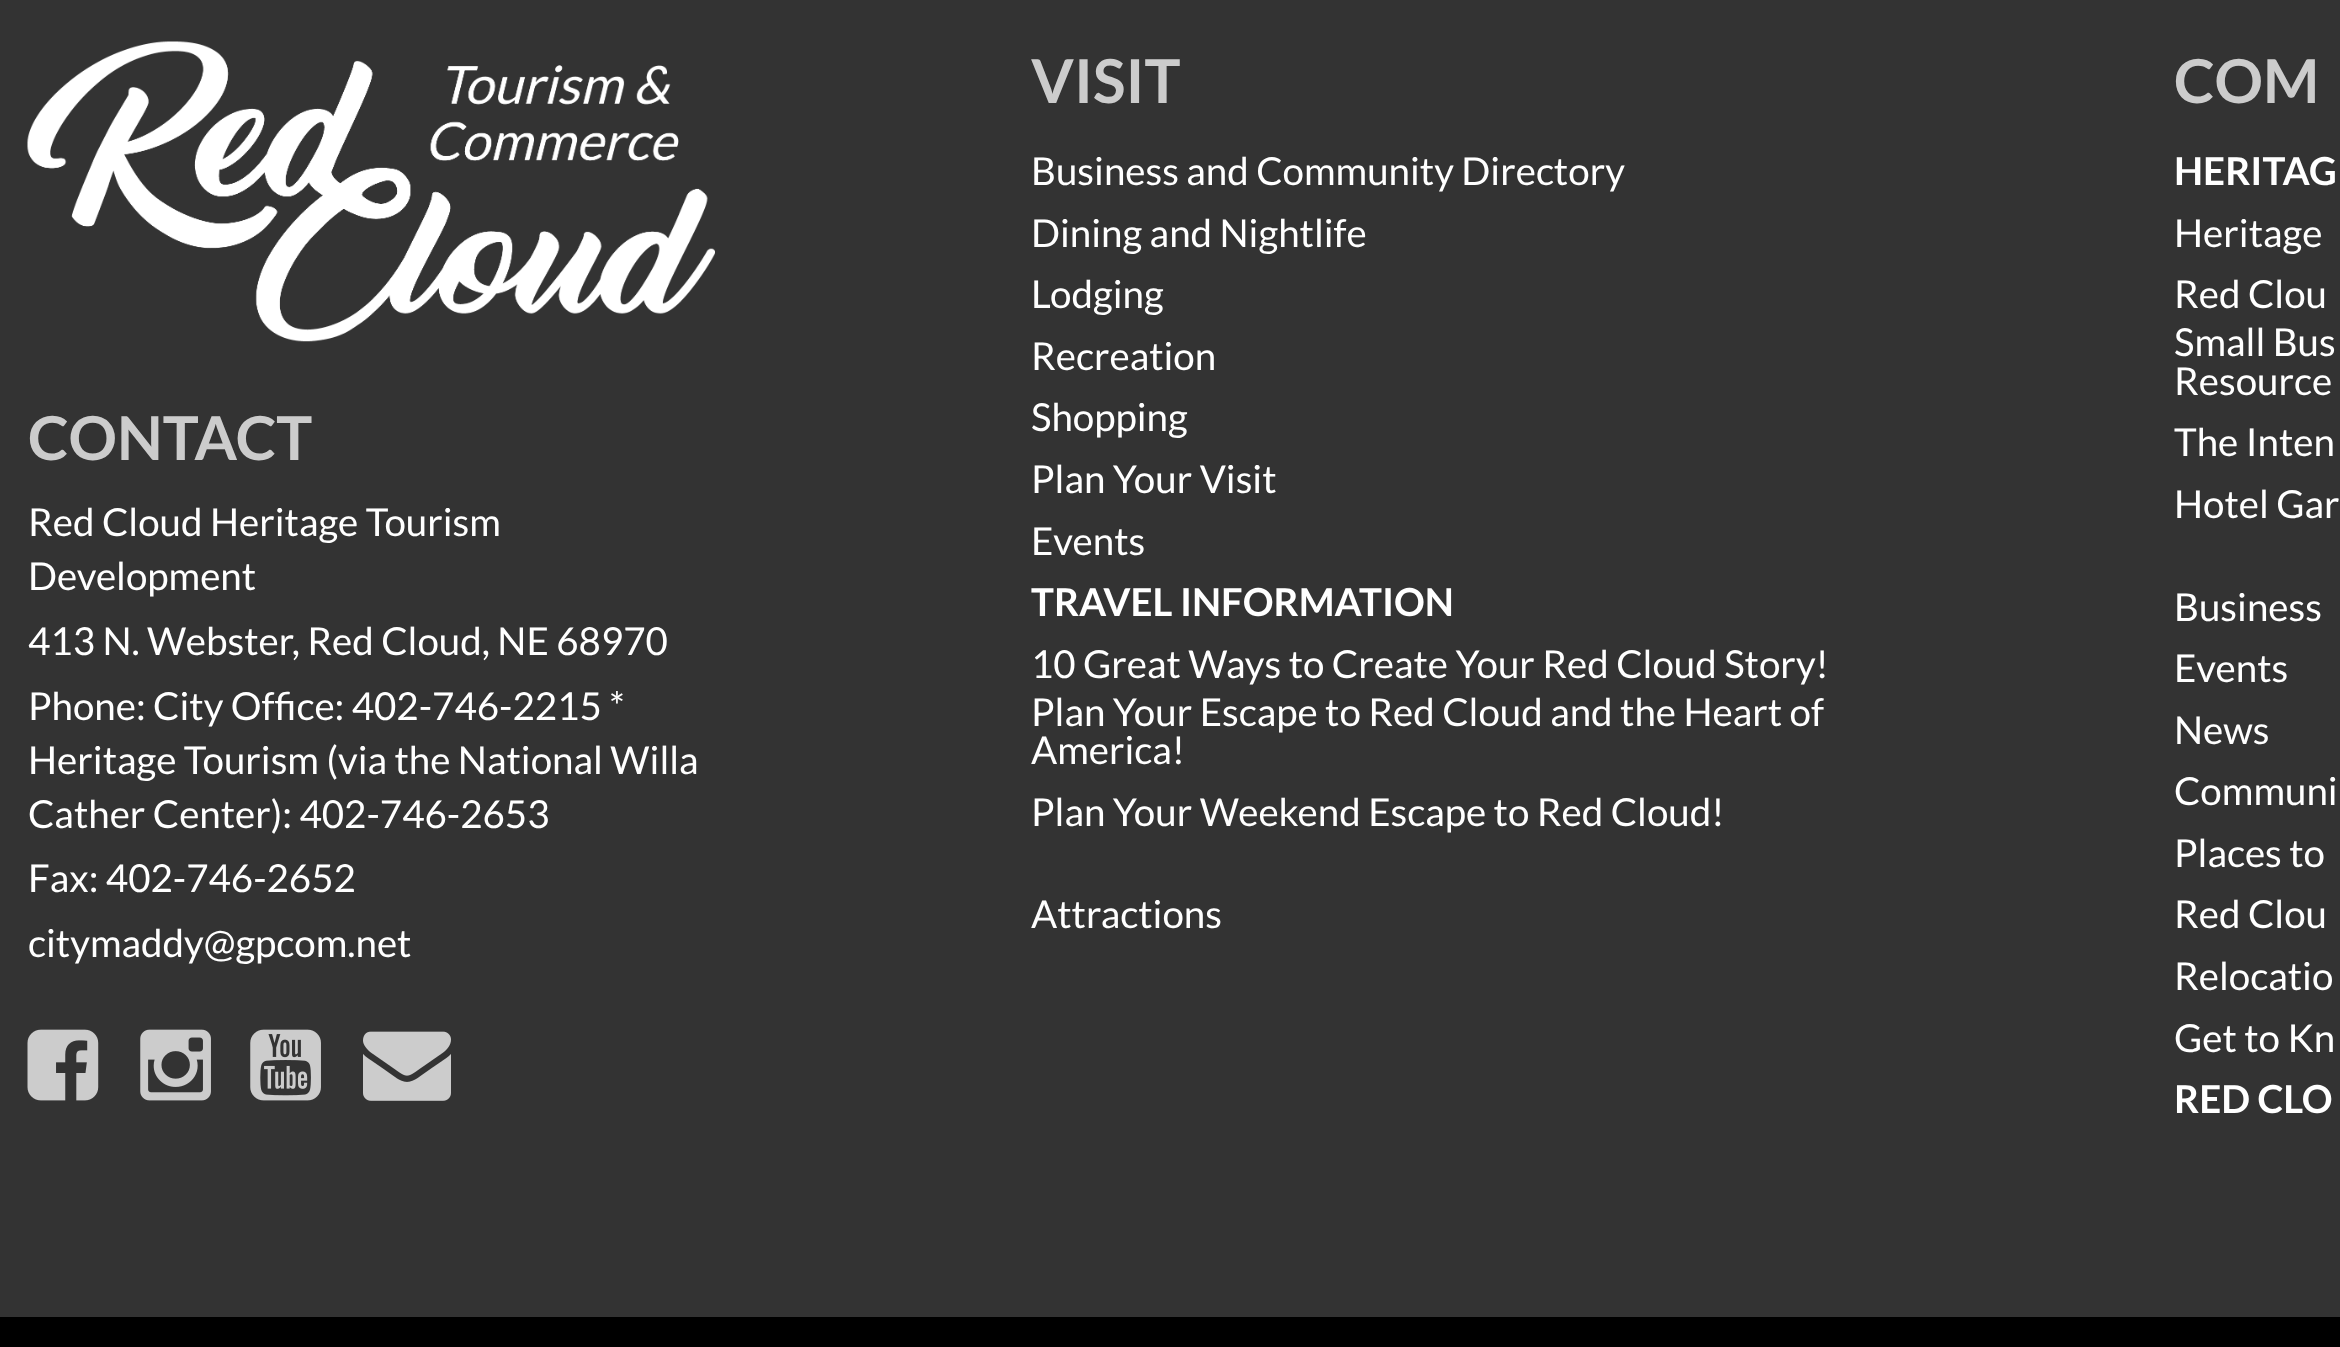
async function draw(canvas) {
  canvas.width = 2340;
  canvas.height = 1347;
  const ctx = canvas.getContext('2d');
  ctx.miterLimit = 4;
  ctx.fontKerning = 'normal';
  function label(s, x, y, font, color) {
    ctx.font = font;
    ctx.fillStyle = color;
    ctx.fillText(s, x, y);
  }
  function rect(x, y, w, h, color) {
    ctx.fillStyle = color;
    ctx.fillRect(x, y, w, h);
  }
  async function image(src, x, y, w, h) {
    const img = new Image();
    img.src = src;
    await img.decode();
    ctx.drawImage(img, x, y, w, h);
  }

  rect(0, 0, 2340, 1347, '#333');
  await image('assets/img1.png', 27, 41, 688, 301);
  label('CONTACT', 28, 460, 'bold 60.5px Lato', '#ccc');
  label('Red Cloud Heritage Tourism', 28, 536, '38.5px Lato', '#fff');
  label('Development', 28, 590, '38.5px Lato', '#fff');
  label('413 N. Webster, Red Cloud, NE 68970', 28, 655, '38.5px Lato', '#fff');
  label('Phone: City Office: 402-746-2215 *', 28, 720, '38.5px Lato', '#fff');
  label('Heritage Tourism (via the National Willa', 28, 774, '38.5px Lato', '#fff');
  label('Cather Center): 402-746-2653', 28, 828, '38.5px Lato', '#fff');
  label('Fax: 402-746-2652', 28, 892, '38.5px Lato', '#fff');
  label('citymaddy@gpcom.net', 28, 957, '38.5px Lato', '#fff');
  await image('assets/img2.png', 27, 1029, 72, 72);
  await image('assets/img3.png', 140, 1029, 71, 72);
  await image('assets/img4.png', 250, 1029, 71, 72);
  await image('assets/img5.png', 363, 1031, 88, 70);
  label('VISIT', 1031, 103, 'bold 60.5px Lato', '#ccc');
  label('Business and Community Directory', 1031, 185, '38.5px Lato', '#fff');
  label('Dining and Nightlife', 1031, 247, '38.5px Lato', '#fff');
  label('Lodging', 1031, 308, '38.5px Lato', '#fff');
  label('Recreation', 1031, 370, '38.5px Lato', '#fff');
  label('Shopping', 1031, 431, '38.5px Lato', '#fff');
  label('Plan Your Visit', 1031, 493, '38.5px Lato', '#fff');
  label('Events', 1031, 555, '38.5px Lato', '#fff');
  label('TRAVEL INFORMATION', 1031, 616, 'bold 38.5px Lato', '#fff');
  label('10 Great Ways to Create Your Red Cloud Story!', 1031, 678, '38.5px Lato', '#fff');
  label('Plan Your Escape to Red Cloud and the Heart of', 1031, 726, '38.5px Lato', '#fff');
  label('America!', 1031, 764, '38.5px Lato', '#fff');
  label('Plan Your Weekend Escape to Red Cloud!', 1031, 826, '38.5px Lato', '#fff');
  label('Attractions', 1031, 928, '38.5px Lato', '#fff');
  label('COM', 2174, 103, 'bold 60.5px Lato', '#ccc');
  label('HERITAG', 2174, 185, 'bold 38.5px Lato', '#fff');
  label('Heritage', 2174, 247, '38.5px Lato', '#fff');
  label('Red Clou', 2174, 308, '38.5px Lato', '#fff');
  label('Small Bus', 2174, 356, '38.5px Lato', '#fff');
  label('Resource', 2174, 395, '38.5px Lato', '#fff');
  label('The Inten', 2174, 456, '38.5px Lato', '#fff');
  label('Hotel Gar', 2174, 518, '38.5px Lato', '#fff');
  label('Business', 2174, 621, '38.5px Lato', '#fff');
  label('Events', 2174, 682, '38.5px Lato', '#fff');
  label('News', 2174, 744, '38.5px Lato', '#fff');
  label('Communi', 2174, 805, '38.5px Lato', '#fff');
  label('Places to', 2174, 867, '38.5px Lato', '#fff');
  label('Red Clou', 2174, 928, '38.5px Lato', '#fff');
  label('Relocatio', 2174, 990, '38.5px Lato', '#fff');
  label('Get to Kn', 2174, 1052, '38.5px Lato', '#fff');
  label('RED CLO', 2174, 1113, 'bold 38.5px Lato', '#fff');
  rect(0, 1317, 2340, 30, '#000');
}

draw(document.querySelector('canvas'));
